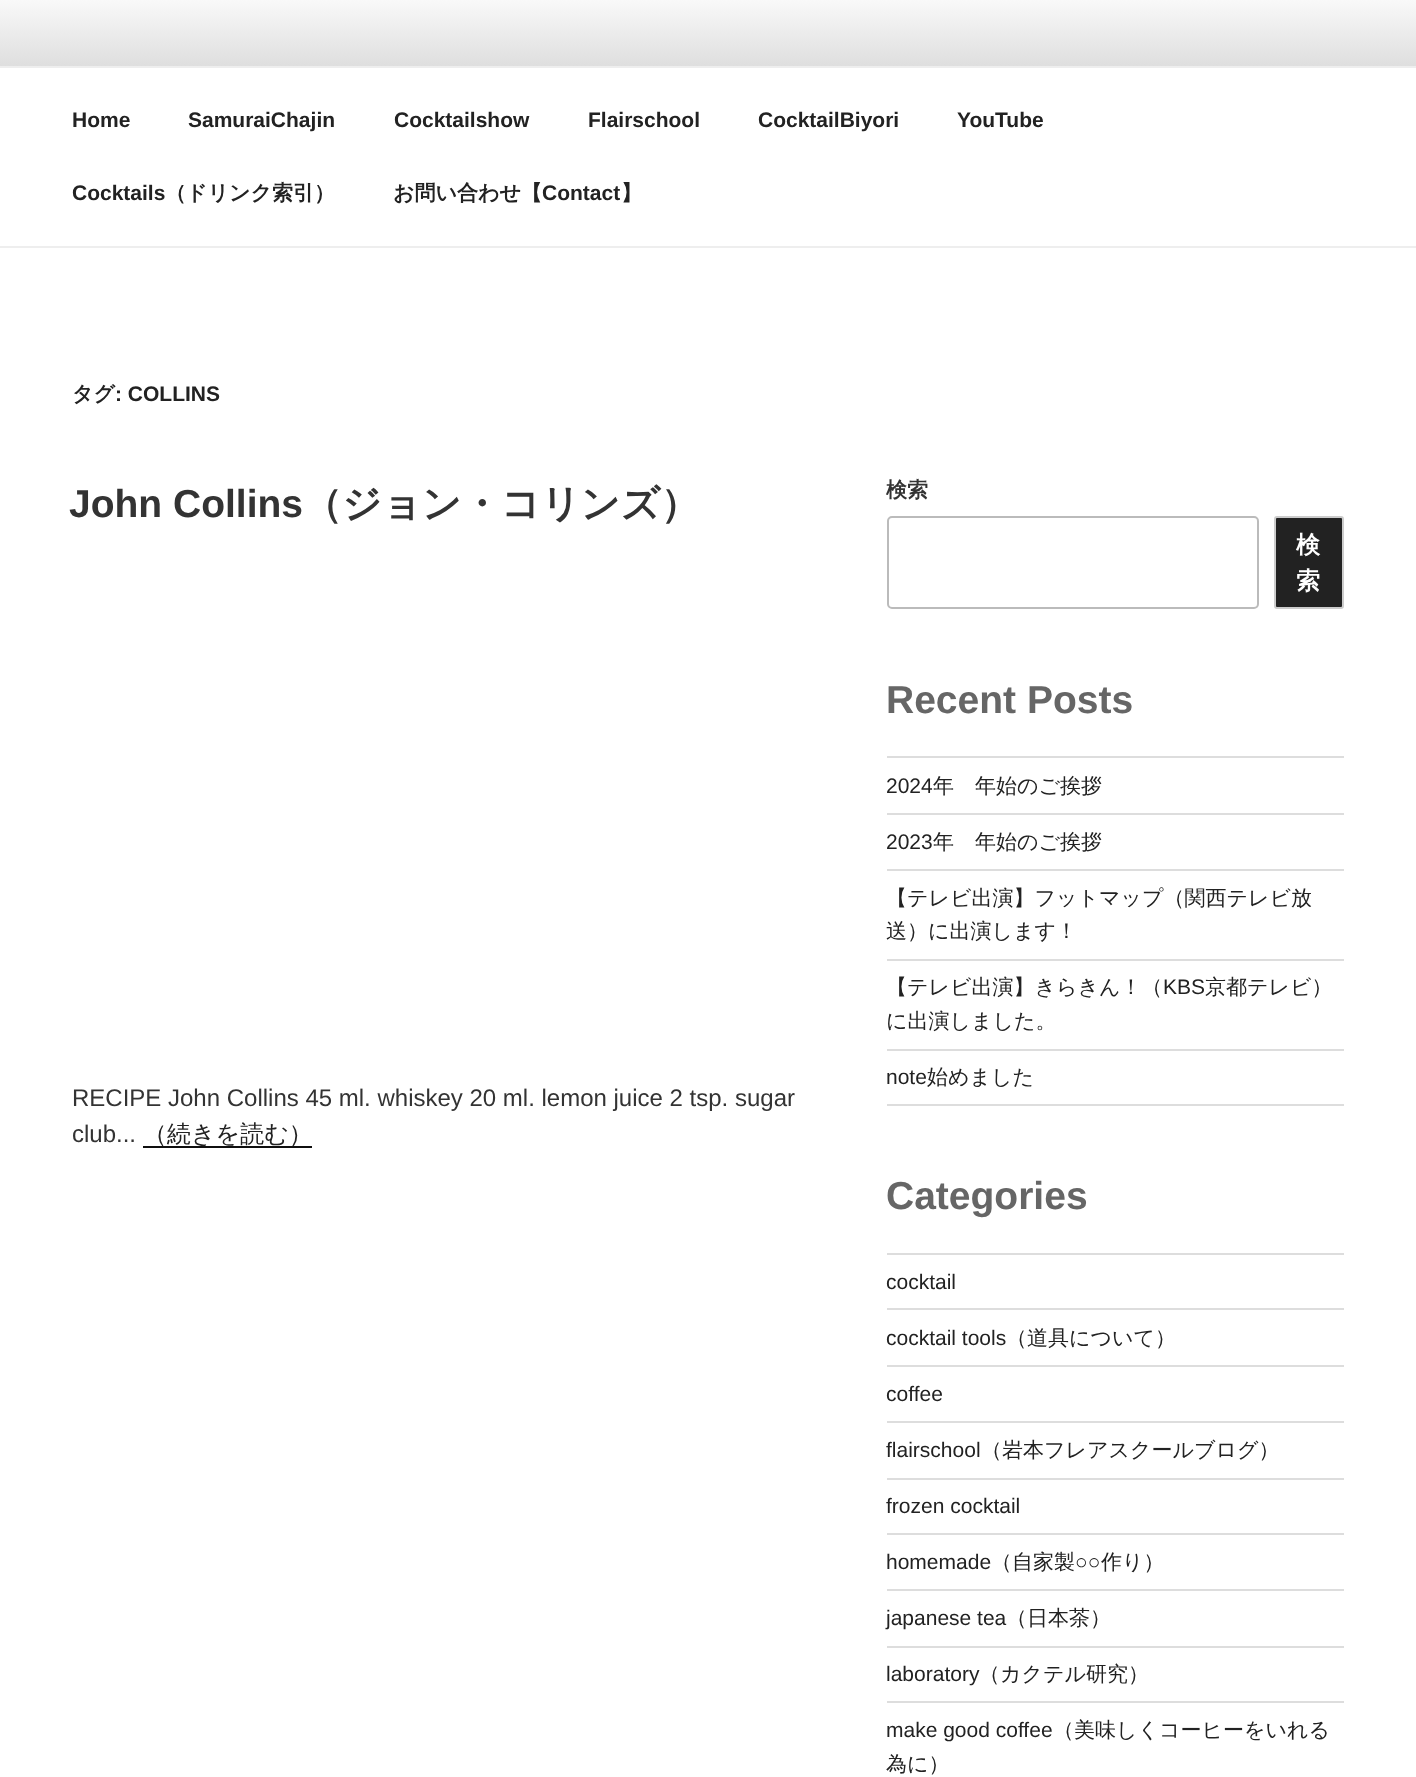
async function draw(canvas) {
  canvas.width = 1416;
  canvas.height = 1777;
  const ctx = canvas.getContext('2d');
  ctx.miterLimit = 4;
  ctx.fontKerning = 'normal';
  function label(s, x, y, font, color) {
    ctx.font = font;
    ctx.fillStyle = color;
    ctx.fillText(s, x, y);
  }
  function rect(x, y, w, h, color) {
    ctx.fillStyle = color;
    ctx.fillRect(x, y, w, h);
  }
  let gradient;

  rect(0, 0, 1416, 1777, '#fff');
  gradient = ctx.createLinearGradient(708, 0, 708, 248);
  gradient.addColorStop(0, '#f9f9f9');
  gradient.addColorStop(0.75, '#aeaeae');
  gradient.addColorStop(1, '#aeaeae');
  ctx.fillStyle = gradient;
  ctx.fillRect(0, 0, 1416, 66);
  rect(0, 66, 1416, 2, '#eee');
  rect(0, 246, 1416, 2, '#eee');
  label('Home', 72, 127, 'bold 21px Liberation Sans', '#222');
  label('SamuraiChajin', 188, 127, 'bold 21px Liberation Sans', '#222');
  label('Cocktailshow', 394, 127, 'bold 21px Liberation Sans', '#222');
  label('Flairschool', 588, 127, 'bold 21px Liberation Sans', '#222');
  label('CocktailBiyori', 758, 127, 'bold 21px Liberation Sans', '#222');
  label('YouTube', 957, 127, 'bold 21px Liberation Sans', '#222');
  label('Cocktails', 72, 200, 'bold 21px Liberation Sans', '#222');
  label('（ドリンク索引）', 165, 200, 'bold 21px WenQuanYi Zen Hei', '#222');
  label('お問い合わせ【', 393, 200, 'bold 21px WenQuanYi Zen Hei', '#222');
  label('Contact', 542, 200, 'bold 21px Liberation Sans', '#222');
  label('】', 621, 200, 'bold 21px WenQuanYi Zen Hei', '#222');
  label('タグ', 72, 401, 'bold 21px WenQuanYi Zen Hei', '#222');
  label(': COLLINS', 115, 401, 'bold 21px Liberation Sans', '#222');
  label('John Collins', 69, 517, 'bold 39px Liberation Sans', '#333');
  label('（ジョン・コリンズ）', 303, 517, 'bold 39px WenQuanYi Zen Hei', '#333');
  label('RECIPE John Collins 45 ml. whiskey 20 ml. lemon juice 2 tsp. sugar', 72, 1106, '24px Liberation Sans', '#333');
  label('club...', 72, 1142, '24px Liberation Sans', '#333');
  rect(143, 1146, 169, 2, '#0f0f0f');
  label('（続きを読む）', 143, 1142, '500 24px WenQuanYi Zen Hei', '#222');
  label('検索', 886, 497, 'bold 21px WenQuanYi Zen Hei', '#333');
  ctx.beginPath();
  ctx.roundRect(888, 517, 370, 91, 4);
  ctx.strokeStyle = '#bbb';
  ctx.lineWidth = 2;
  ctx.stroke();
  ctx.fillStyle = '#222';
  ctx.beginPath();
  ctx.roundRect(1275, 517, 68, 91, 2);
  ctx.fill();
  ctx.strokeStyle = '#ccc';
  ctx.stroke();
  label('検', 1296, 553, 'bold 24px WenQuanYi Zen Hei', '#fff');
  label('索', 1296, 589, 'bold 24px WenQuanYi Zen Hei', '#fff');
  label('Recent Posts', 886, 713, 'bold 39px Liberation Sans', '#666');
  rect(887, 756, 457, 2, '#ddd');
  rect(887, 813, 457, 2, '#ddd');
  label('2024', 886, 793, '21px Liberation Sans', '#222');
  label('年　年始のご挨拶', 933, 793, '500 21px WenQuanYi Zen Hei', '#222');
  rect(887, 869, 457, 2, '#ddd');
  label('2023', 886, 849, '21px Liberation Sans', '#222');
  label('年　年始のご挨拶', 933, 849, '500 21px WenQuanYi Zen Hei', '#222');
  rect(887, 959, 457, 2, '#ddd');
  label('【テレビ出演】フットマップ（関西テレビ放', 886, 905, '500 21px WenQuanYi Zen Hei', '#222');
  label('送）に出演します！', 886, 938, '500 21px WenQuanYi Zen Hei', '#222');
  rect(887, 1049, 457, 2, '#ddd');
  label('【テレビ出演】きらきん！（', 886, 994, '500 21px WenQuanYi Zen Hei', '#222');
  label('KBS', 1163, 994, '21px Liberation Sans', '#222');
  label('京都テレビ）', 1205, 994, '500 21px WenQuanYi Zen Hei', '#222');
  label('に出演しました。', 886, 1028, '500 21px WenQuanYi Zen Hei', '#222');
  rect(887, 1104, 457, 2, '#ddd');
  label('note', 886, 1084, '21px Liberation Sans', '#222');
  label('始めました', 927, 1084, '500 21px WenQuanYi Zen Hei', '#222');
  label('Categories', 886, 1209, 'bold 39px Liberation Sans', '#666');
  rect(887, 1253, 457, 2, '#ddd');
  rect(887, 1308, 457, 2, '#ddd');
  label('cocktail', 886, 1289, '21px Liberation Sans', '#222');
  rect(887, 1365, 457, 2, '#ddd');
  label('cocktail tools', 886, 1345, '21px Liberation Sans', '#222');
  label('（道具について）', 1006, 1345, '500 21px WenQuanYi Zen Hei', '#222');
  rect(887, 1421, 457, 2, '#ddd');
  label('coffee', 886, 1401, '21px Liberation Sans', '#222');
  rect(887, 1478, 457, 2, '#ddd');
  label('flairschool', 886, 1457, '21px Liberation Sans', '#222');
  label('（岩本フレアスクールブログ）', 981, 1457, '500 21px WenQuanYi Zen Hei', '#222');
  rect(887, 1533, 457, 2, '#ddd');
  label('frozen cocktail', 886, 1513, '21px Liberation Sans', '#222');
  rect(887, 1589, 457, 2, '#ddd');
  label('homemade', 886, 1569, '21px Liberation Sans', '#222');
  label('（自家製', 991, 1569, '500 21px WenQuanYi Zen Hei', '#222');
  label('○○', 1075, 1569, '21px Liberation Sans', '#222');
  label('作り）', 1101, 1569, '500 21px WenQuanYi Zen Hei', '#222');
  rect(887, 1646, 457, 2, '#ddd');
  label('japanese tea', 886, 1625, '21px Liberation Sans', '#222');
  label('（日本茶）', 1006, 1625, '500 21px WenQuanYi Zen Hei', '#222');
  rect(887, 1701, 457, 2, '#ddd');
  label('laboratory', 886, 1681, '21px Liberation Sans', '#222');
  label('（カクテル研究）', 979, 1681, '500 21px WenQuanYi Zen Hei', '#222');
  label('make good coffee', 886, 1737, '21px Liberation Sans', '#222');
  label('（美味しくコーヒーをいれる', 1053, 1737, '500 21px WenQuanYi Zen Hei', '#222');
  label('為に）', 886, 1771, '500 21px WenQuanYi Zen Hei', '#222');
}

draw(document.querySelector('canvas'));
